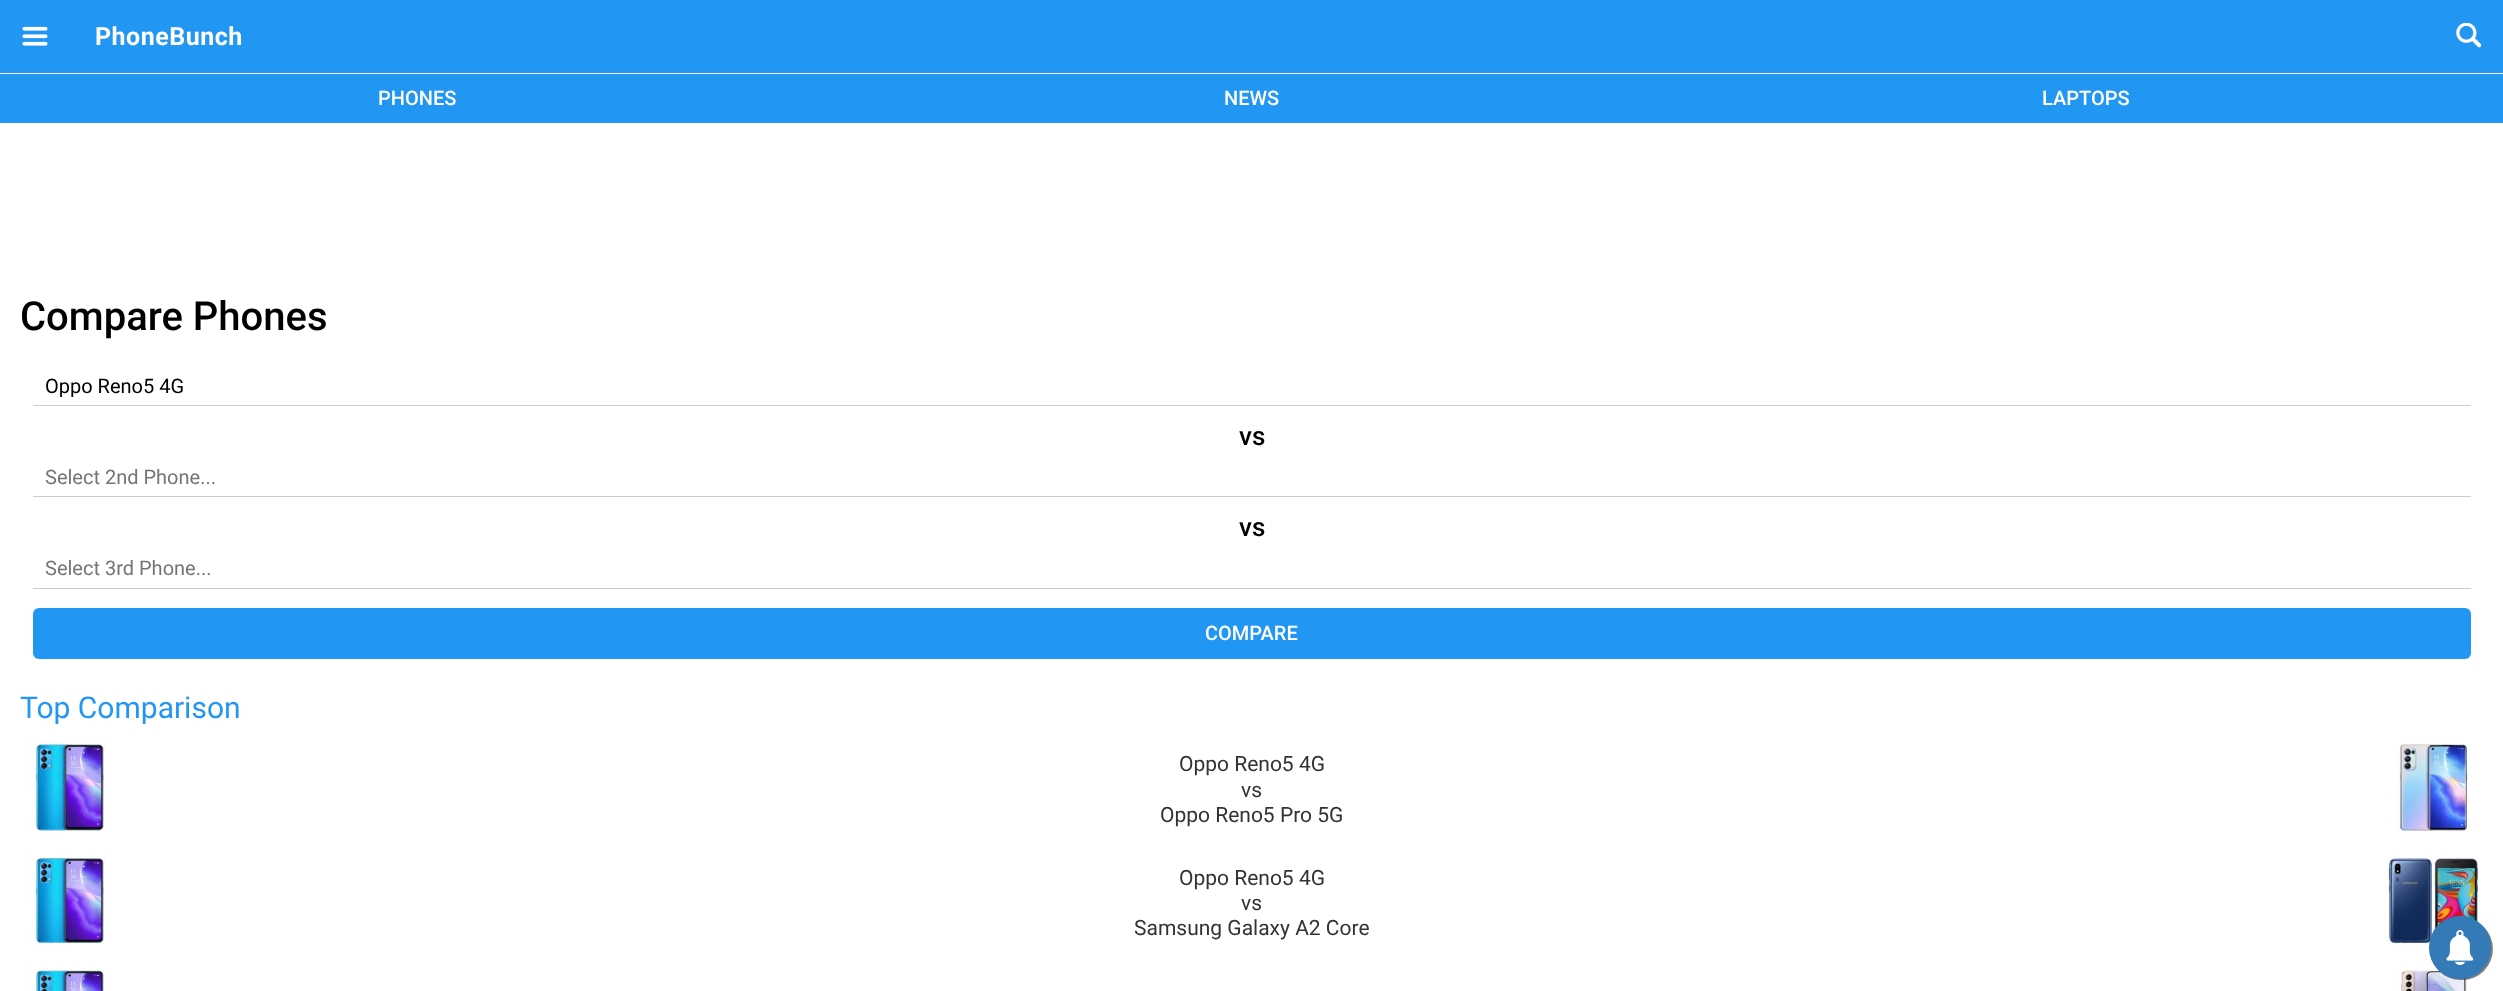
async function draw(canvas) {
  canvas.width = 2503;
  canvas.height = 991;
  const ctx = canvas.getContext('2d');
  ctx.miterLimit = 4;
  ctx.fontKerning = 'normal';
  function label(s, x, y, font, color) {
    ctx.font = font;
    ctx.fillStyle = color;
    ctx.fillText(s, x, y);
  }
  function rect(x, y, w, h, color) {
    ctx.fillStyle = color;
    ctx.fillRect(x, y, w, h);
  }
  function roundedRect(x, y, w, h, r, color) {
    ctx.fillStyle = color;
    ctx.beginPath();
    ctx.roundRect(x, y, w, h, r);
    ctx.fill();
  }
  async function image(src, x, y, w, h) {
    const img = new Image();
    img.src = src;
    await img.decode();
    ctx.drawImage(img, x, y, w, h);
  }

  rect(0, 0, 2503, 991, '#fff');
  rect(0, 0, 2503, 73, '#2196f3');
  await image('assets/img1.png', 22, 26, 26, 20);
  ctx.letterSpacing = '0.5px';
  label('PhoneBunch', 95, 45, 'bold 25px Roboto', '#fff');
  await image('assets/img2.png', 2456, 23, 25, 25);
  rect(0, 74, 2503, 49, '#2196f3');
  ctx.letterSpacing = '0px';
  label('PHONES', 378, 105, '500 20px Roboto', '#fff');
  label('NEWS', 1224, 105, '500 20px Roboto', '#fff');
  label('LAPTOPS', 2042, 105, '500 20px Roboto', '#fff');
  label('Compare Phones', 20, 330, '500 40px Roboto', '#000');
  rect(33, 405, 2438, 1, '#ccc');
  label('Oppo Reno5 4G', 45, 393, '20px Roboto', '#000');
  label('vs', 1239, 445, '500 26px Roboto', '#000');
  rect(33, 496, 2438, 1, '#ccc');
  label('Select 2nd Phone...', 45, 484, '20px Roboto', '#757575');
  label('vs', 1239, 536, '500 26px Roboto', '#000');
  rect(33, 588, 2438, 1, '#ccc');
  label('Select 3rd Phone...', 45, 575, '20px Roboto', '#757575');
  roundedRect(33, 608, 2438, 51, 6, '#2196f3');
  label('COMPARE', 1205, 640, '500 20px Roboto', '#fff');
  label('Top Comparison', 20, 718, '30px Roboto', '#2196f3');
  await image('assets/img3.png', 30, 743, 76, 88);
  label('Oppo Reno5 4G', 1179, 771, '21px Roboto', '#333');
  label('vs', 1241, 797, '21px Roboto', '#333');
  label('Oppo Reno5 Pro 5G', 1160, 822, '21px Roboto', '#333');
  await image('assets/img4.png', 2395, 743, 74, 88);
  await image('assets/img5.png', 30, 857, 76, 87);
  label('Oppo Reno5 4G', 1179, 885, '21px Roboto', '#333');
  label('vs', 1241, 910, '21px Roboto', '#333');
  label('Samsung Galaxy A2 Core', 1134, 935, '21px Roboto', '#333');
  await image('assets/img6.png', 2384, 857, 96, 87);
  await image('assets/img7.png', 30, 970, 76, 21);
  await image('assets/img8.png', 2400, 970, 69, 21);
  ctx.fillStyle = '#00000080';
  ctx.filter = 'blur(0.5px)';
  ctx.beginPath();
  ctx.roundRect(2430, 918, 63, 62, 31);
  ctx.fill();
  ctx.filter = 'none';
  roundedRect(2429, 916, 62, 63, 31, '#337ab7');
  await image('assets/img9.png', 2446, 930, 28, 35);
}

draw(document.querySelector('canvas'));
